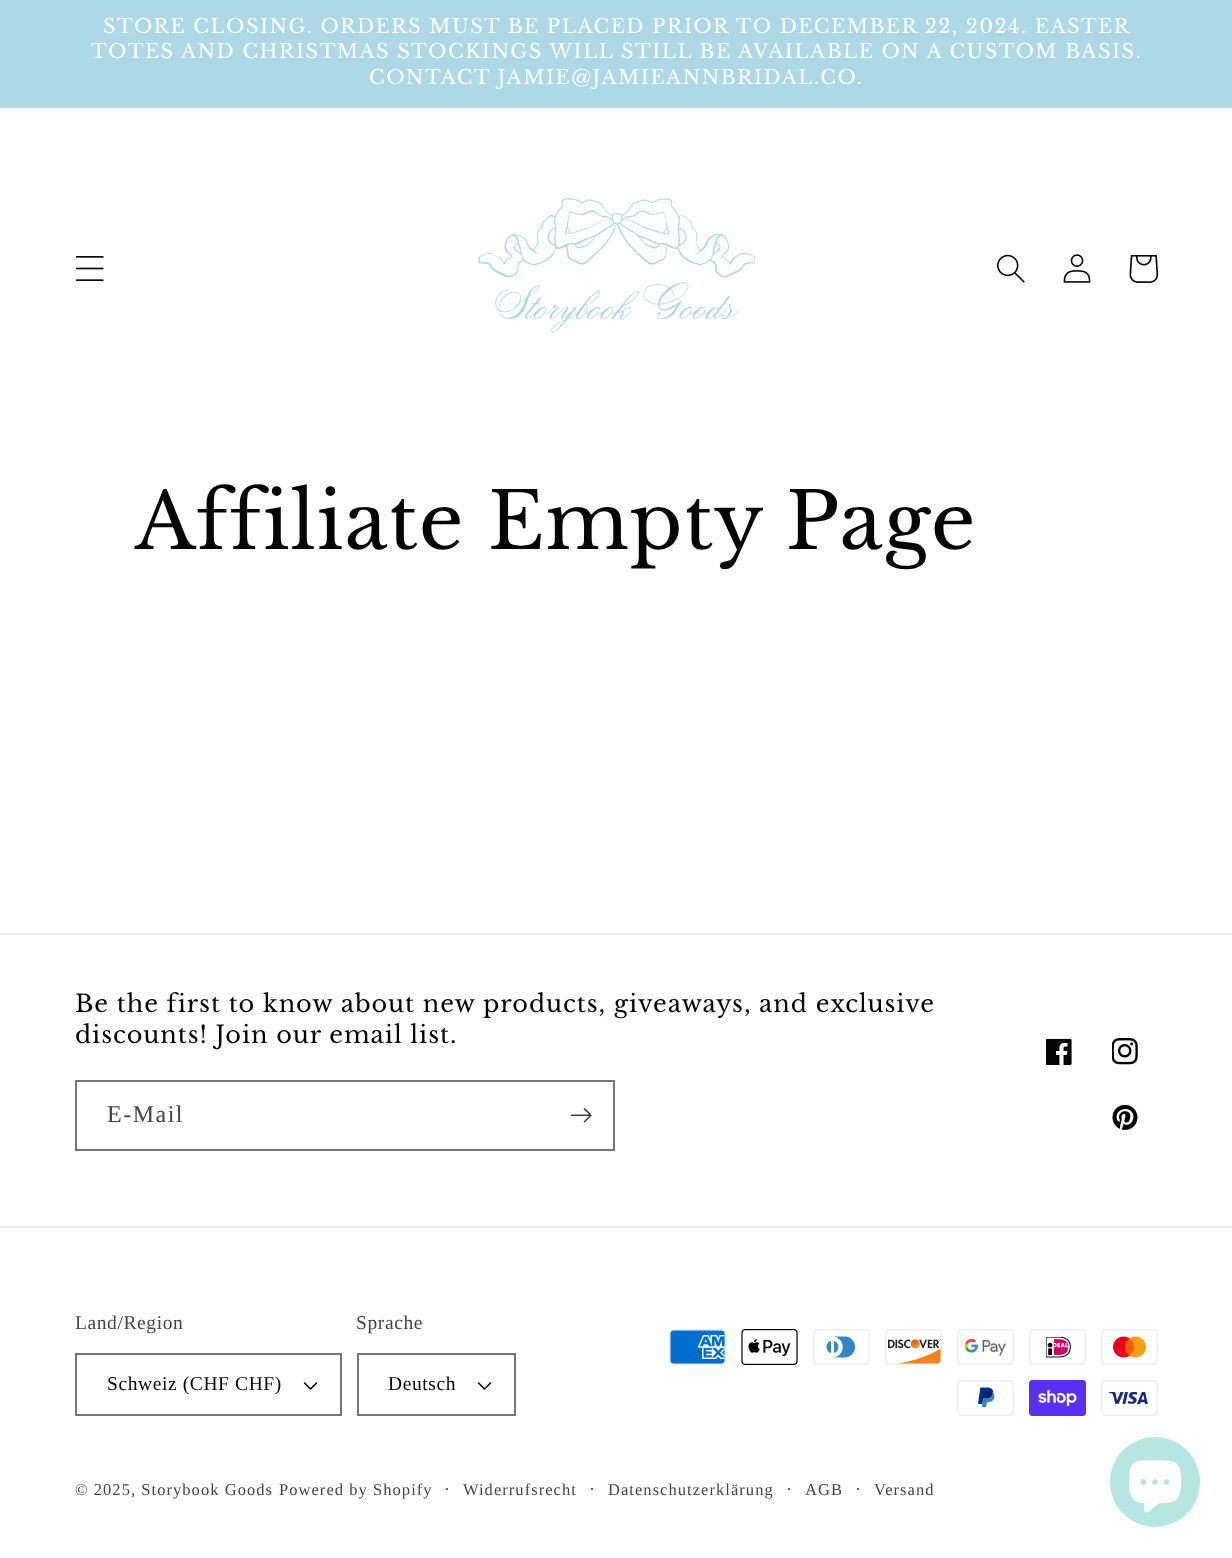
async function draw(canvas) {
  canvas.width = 1232;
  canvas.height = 1558;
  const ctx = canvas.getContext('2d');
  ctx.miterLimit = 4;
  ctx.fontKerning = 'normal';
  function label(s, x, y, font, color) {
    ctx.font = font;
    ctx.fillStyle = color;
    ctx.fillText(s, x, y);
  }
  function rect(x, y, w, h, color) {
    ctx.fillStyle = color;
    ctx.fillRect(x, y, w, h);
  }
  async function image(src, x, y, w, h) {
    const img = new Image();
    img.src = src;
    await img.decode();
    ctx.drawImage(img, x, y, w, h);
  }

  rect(0, 0, 1232, 1558, '#fff');
  rect(0, 0, 1232, 107, '#add8e6');
  rect(0, 107, 1232, 1, '#b4dbe8');
  ctx.letterSpacing = '1.5px';
  label('STORE CLOSING. ORDERS MUST BE PLACED PRIOR TO DECEMBER 22, 2024. EASTER', 103, 33, '19.5px Libre Baskerville', '#fff');
  label('TOTES AND CHRISTMAS STOCKINGS WILL STILL BE AVAILABLE ON A CUSTOM BASIS.', 91, 58, '19.5px Libre Baskerville', '#fff');
  label('CONTACT JAMIE@JAMIEANNBRIDAL.CO.', 369, 84, '19.5px Libre Baskerville', '#fff');
  await image('assets/img1.png', 75, 256, 29, 25);
  await image('assets/img2.png', 478, 198, 277, 135);
  await image('assets/img3.png', 997, 254, 28, 29);
  await image('assets/img4.png', 1063, 254, 28, 29);
  await image('assets/img5.png', 1129, 255, 30, 28);
  ctx.letterSpacing = '0.9px';
  label('Affiliate Empty Page', 135, 549, '78px Libre Baskerville', '#050505');
  rect(0, 933, 1232, 2, '#ebebeb');
  label('Be the first to know about new products, giveaways, and exclusive', 75, 1012, '24px Libre Baskerville', '#050505');
  label('discounts! Join our email list.', 75, 1043, '24px Libre Baskerville', '#050505');
  ctx.strokeStyle = '#767676';
  ctx.lineWidth = 2;
  ctx.strokeRect(76, 1081, 538, 69);
  ctx.letterSpacing = '1.5px';
  label('E-Mail', 107, 1122, '24px Liberation Serif', '#444');
  await image('assets/img6.png', 570, 1108, 22, 15);
  await image('assets/img7.png', 1046, 1038, 26, 27);
  await image('assets/img8.png', 1112, 1038, 26, 27);
  await image('assets/img9.png', 1112, 1104, 26, 26);
  rect(0, 1226, 1232, 2, '#ebebeb');
  ctx.letterSpacing = '0.6px';
  label('Land/Region', 75, 1329, '19.5px Liberation Serif', '#444');
  await image('assets/img10.png', 303, 1382, 15, 8);
  ctx.strokeRect(76, 1354, 265, 61);
  label('Schweiz (CHF CHF)', 107, 1390, '19.5px Liberation Serif', '#050505');
  label('Sprache', 356, 1329, '19.5px Liberation Serif', '#444');
  await image('assets/img10.png', 477, 1382, 15, 8);
  ctx.strokeRect(358, 1354, 157, 61);
  label('Deutsch', 388, 1390, '19.5px Liberation Serif', '#050505');
  await image('assets/img11.png', 669, 1329, 57, 36);
  await image('assets/img12.png', 741, 1329, 57, 36);
  await image('assets/img13.png', 813, 1329, 57, 36);
  await image('assets/img14.png', 885, 1329, 57, 36);
  await image('assets/img15.png', 957, 1329, 57, 36);
  await image('assets/img16.png', 1029, 1329, 57, 36);
  await image('assets/img17.png', 1101, 1329, 57, 36);
  await image('assets/img18.png', 957, 1380, 57, 36);
  await image('assets/img19.png', 1029, 1380, 57, 36);
  await image('assets/img20.png', 1101, 1380, 57, 36);
  ctx.letterSpacing = '1.05px';
  label('© 2025, Storybook Goods', 75, 1495, '16.5px Liberation Serif', '#444');
  label('Powered by Shopify', 279, 1495, '16.5px Liberation Serif', '#444');
  label('·', 444, 1495, '18px Liberation Serif', '#444');
  label('Widerrufsrecht', 463, 1495, '16.5px Liberation Serif', '#444');
  label('·', 589, 1495, '18px Liberation Serif', '#444');
  label('Datenschutzerklärung', 608, 1495, '16.5px Liberation Serif', '#444');
  label('·', 786, 1495, '18px Liberation Serif', '#444');
  label('AGB', 805, 1495, '16.5px Liberation Serif', '#444');
  label('·', 855, 1495, '18px Liberation Serif', '#444');
  label('Versand', 874, 1495, '16.5px Liberation Serif', '#444');
  ctx.fillStyle = '#b6e6e2';
  ctx.beginPath();
  ctx.arc(1155, 1482, 45, 0, 2 * Math.PI);
  ctx.fill();
  await image('assets/img21.png', 1128, 1460, 54, 53);
}

draw(document.querySelector('canvas'));
